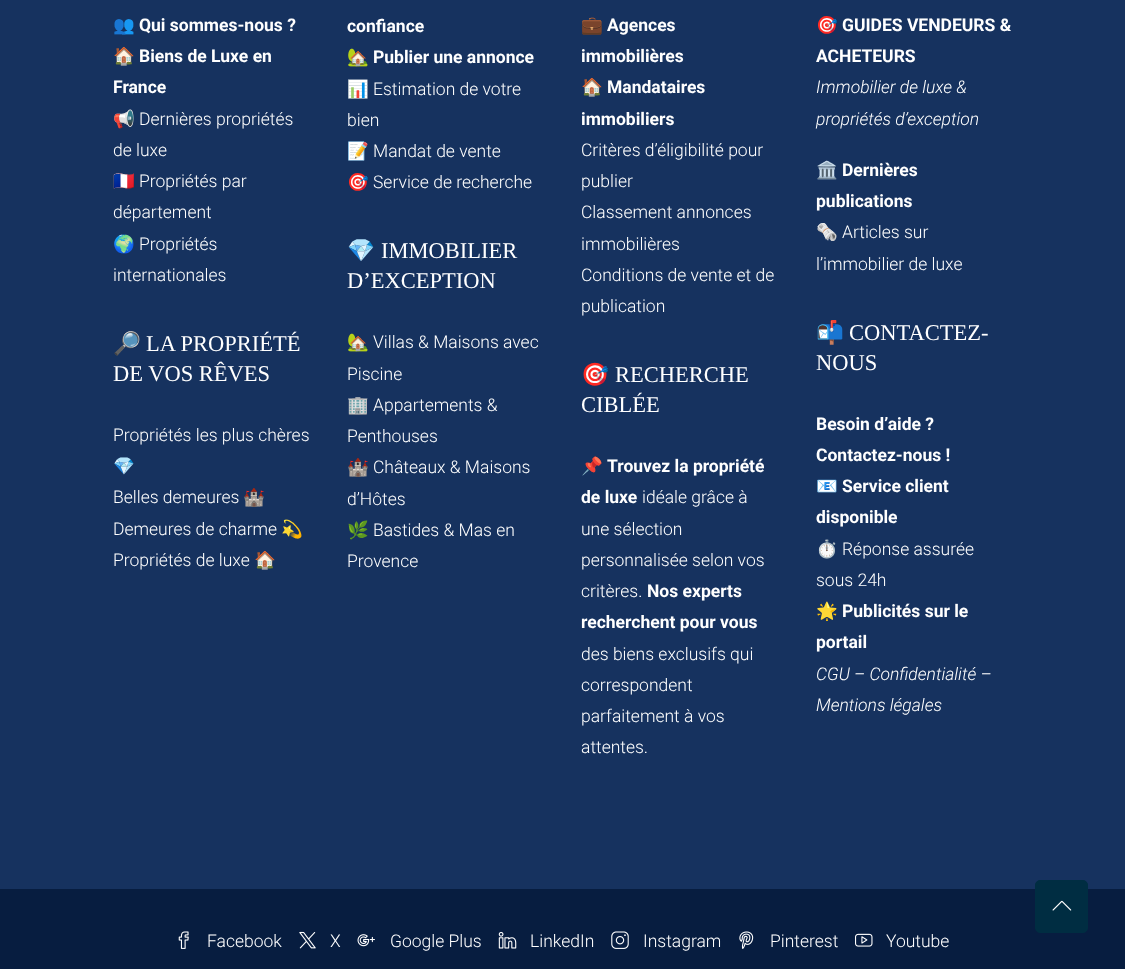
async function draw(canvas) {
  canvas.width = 1125;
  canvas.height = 969;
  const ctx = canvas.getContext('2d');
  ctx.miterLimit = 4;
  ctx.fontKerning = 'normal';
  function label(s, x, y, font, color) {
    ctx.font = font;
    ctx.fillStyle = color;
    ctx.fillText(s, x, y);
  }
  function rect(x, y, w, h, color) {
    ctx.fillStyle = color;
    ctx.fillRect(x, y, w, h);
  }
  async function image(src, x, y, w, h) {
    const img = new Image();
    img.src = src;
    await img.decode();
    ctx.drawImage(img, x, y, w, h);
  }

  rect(0, 0, 1125, 969, '#16325f');
  label('👥', 113, 31, 'bold 17.5px Noto Color Emoji', '#fff');
  label('Qui sommes-nous ?', 139, 31, 'bold 17.5px Roboto', '#fff');
  label('🏠', 113, 62, 'bold 17.5px Noto Color Emoji', '#fff');
  label('Biens de Luxe en', 139, 62, 'bold 17.5px Roboto', '#fff');
  label('France', 113, 93, 'bold 17.5px Roboto', '#fff');
  label('📢', 113, 125, '17.5px Noto Color Emoji', '#fff');
  label('Dernières propriétés', 139, 125, '300 17.5px Roboto', '#fff');
  label('de luxe', 113, 156, '300 17.5px Roboto', '#fff');
  label('🇫🇷', 113, 187, '17.5px Noto Color Emoji', '#fff');
  label('Propriétés par', 139, 187, '300 17.5px Roboto', '#fff');
  label('département', 113, 218, '300 17.5px Roboto', '#fff');
  label('🌍', 113, 250, '17.5px Noto Color Emoji', '#fff');
  label('Propriétés', 139, 250, '300 17.5px Roboto', '#fff');
  label('internationales', 113, 281, '300 17.5px Roboto', '#fff');
  label('🔎', 113, 351, '22.5px Noto Color Emoji', '#fff');
  label('LA PROPRIÉTÉ', 146, 351, '22.5px Liberation Serif', '#fff');
  label('DE VOS RÊVES', 113, 381, '22.5px Liberation Serif', '#fff');
  label('Propriétés les plus chères', 113, 441, '300 17.5px Roboto', '#fff');
  label('💎', 113, 472, '17.5px Noto Color Emoji', '#fff');
  label('Belles demeures', 113, 503, '300 17.5px Roboto', '#fff');
  label('🏰', 243, 503, '17.5px Noto Color Emoji', '#fff');
  label('Demeures de charme', 113, 535, '300 17.5px Roboto', '#fff');
  label('💫', 281, 535, '17.5px Noto Color Emoji', '#fff');
  label('Propriétés de luxe', 113, 566, '300 17.5px Roboto', '#fff');
  label('🏠', 254, 566, 'bold 17.5px Noto Color Emoji', '#fff');
  label('confiance', 347, 32, 'bold 17.5px Roboto', '#fff');
  label('🏡', 347, 63, 'bold 17.5px Noto Color Emoji', '#fff');
  label('Publier une annonce', 373, 63, 'bold 17.5px Roboto', '#fff');
  label('📊', 347, 95, '17.5px Noto Color Emoji', '#fff');
  label('Estimation de votre', 373, 95, '300 17.5px Roboto', '#fff');
  label('bien', 347, 126, '300 17.5px Roboto', '#fff');
  label('📝', 347, 157, '17.5px Noto Color Emoji', '#fff');
  label('Mandat de vente', 373, 157, '300 17.5px Roboto', '#fff');
  label('🎯', 347, 188, '17.5px Noto Color Emoji', '#fff');
  label('Service de recherche', 373, 188, '300 17.5px Roboto', '#fff');
  label('💎', 347, 258, '22.5px Noto Color Emoji', '#fff');
  label('IMMOBILIER', 381, 258, '22.5px Liberation Serif', '#fff');
  label('D’EXCEPTION', 347, 288, '22.5px Liberation Serif', '#fff');
  label('🏡', 347, 348, '17.5px Noto Color Emoji', '#fff');
  label('Villas & Maisons avec', 373, 348, '300 17.5px Roboto', '#fff');
  label('Piscine', 347, 380, '300 17.5px Roboto', '#fff');
  label('🏢', 347, 411, '17.5px Noto Color Emoji', '#fff');
  label('Appartements &', 373, 411, '300 17.5px Roboto', '#fff');
  label('Penthouses', 347, 442, '300 17.5px Roboto', '#fff');
  label('🏰', 347, 473, '17.5px Noto Color Emoji', '#fff');
  label('Châteaux & Maisons', 373, 473, '300 17.5px Roboto', '#fff');
  label('d’Hôtes', 347, 505, '300 17.5px Roboto', '#fff');
  label('🌿', 347, 536, '17.5px Noto Color Emoji', '#fff');
  label('Bastides & Mas en', 373, 536, '300 17.5px Roboto', '#fff');
  label('Provence', 347, 567, '300 17.5px Roboto', '#fff');
  label('💼', 581, 31, 'bold 17.5px Noto Color Emoji', '#fff');
  label('Agences', 607, 31, 'bold 17.5px Roboto', '#fff');
  label('immobilières', 581, 62, 'bold 17.5px Roboto', '#fff');
  label('🏠', 581, 93, 'bold 17.5px Noto Color Emoji', '#fff');
  label('Mandataires', 607, 93, 'bold 17.5px Roboto', '#fff');
  label('immobiliers', 581, 125, 'bold 17.5px Roboto', '#fff');
  label('Critères d’éligibilité pour', 581, 156, '300 17.5px Roboto', '#fff');
  label('publier', 581, 187, '300 17.5px Roboto', '#fff');
  label('Classement annonces', 581, 218, '300 17.5px Roboto', '#fff');
  label('immobilières', 581, 250, '300 17.5px Roboto', '#fff');
  label('Conditions de vente et de', 581, 281, '300 17.5px Roboto', '#fff');
  label('publication', 581, 312, '300 17.5px Roboto', '#fff');
  label('🎯', 581, 382, '22.5px Noto Color Emoji', '#fff');
  label('RECHERCHE', 615, 382, '22.5px Liberation Serif', '#fff');
  label('CIBLÉE', 581, 412, '22.5px Liberation Serif', '#fff');
  label('📌', 581, 472, '17.5px Noto Color Emoji', '#fff');
  label('Trouvez la propriété', 607, 472, 'bold 17.5px Roboto', '#fff');
  label('de luxe', 581, 503, 'bold 17.5px Roboto', '#fff');
  label('idéale grâce à', 642, 503, '300 17.5px Roboto', '#fff');
  label('une sélection', 581, 535, '300 17.5px Roboto', '#fff');
  label('personnalisée selon vos', 581, 566, '300 17.5px Roboto', '#fff');
  label('critères.', 581, 597, '300 17.5px Roboto', '#fff');
  label('Nos experts', 647, 597, 'bold 17.5px Roboto', '#fff');
  label('recherchent pour vous', 581, 628, 'bold 17.5px Roboto', '#fff');
  label('des biens exclusifs qui', 581, 660, '300 17.5px Roboto', '#fff');
  label('correspondent', 581, 691, '300 17.5px Roboto', '#fff');
  label('parfaitement à vos', 581, 722, '300 17.5px Roboto', '#fff');
  label('attentes.', 581, 753, '300 17.5px Roboto', '#fff');
  label('🎯', 816, 31, '17.5px Noto Color Emoji', '#fff');
  label('GUIDES VENDEURS &', 842, 31, 'bold 17.5px Roboto', '#fff');
  label('ACHETEURS', 816, 62, 'bold 17.5px Roboto', '#fff');
  label('Immobilier de luxe &', 816, 93, 'italic 300 17.5px Roboto', '#fff');
  label('propriétés d’exception', 816, 125, 'italic 300 17.5px Roboto', '#fff');
  label('🏛️', 816, 176, '17.5px Noto Color Emoji', '#fff');
  label('Dernières', 842, 176, 'bold 17.5px Roboto', '#fff');
  label('publications', 816, 207, 'bold 17.5px Roboto', '#fff');
  label('🗞️', 816, 238, 'bold 17.5px Noto Color Emoji', '#fff');
  label('Articles sur', 842, 238, '300 17.5px Roboto', '#fff');
  label('l’immobilier de luxe', 816, 270, '300 17.5px Roboto', '#fff');
  label('📬', 816, 340, '22.5px Noto Color Emoji', '#fff');
  label('CONTACTEZ-', 849, 340, '22.5px Liberation Serif', '#fff');
  label('NOUS', 816, 370, '22.5px Liberation Serif', '#fff');
  label('Besoin d’aide ?', 816, 430, 'bold 17.5px Roboto', '#fff');
  label('Contactez-nous !', 816, 461, 'bold 17.5px Roboto', '#fff');
  label('📧', 816, 492, '17.5px Noto Color Emoji', '#fff');
  label('Service client', 842, 492, 'bold 17.5px Roboto', '#fff');
  label('disponible', 816, 523, 'bold 17.5px Roboto', '#fff');
  label('⏱️', 816, 555, '17.5px Noto Color Emoji', '#fff');
  label('Réponse assurée', 842, 555, '300 17.5px Roboto', '#fff');
  label('sous 24h', 816, 586, '300 17.5px Roboto', '#fff');
  label('🌟', 816, 617, 'bold 17.5px Noto Color Emoji', '#fff');
  label('Publicités sur le', 842, 617, 'bold 17.5px Roboto', '#fff');
  label('portail', 816, 648, 'bold 17.5px Roboto', '#fff');
  label('CGU – Confidentialité –', 816, 680, 'italic 300 17.5px Roboto', '#fff');
  label('Mentions légales', 816, 711, 'italic 300 17.5px Roboto', '#fff');
  rect(0, 889, 1125, 80, '#071d40');
  await image('assets/img1.png', 178, 931, 11, 18);
  label('Facebook', 207, 947, '300 17.5px Roboto', '#fff');
  await image('assets/img2.png', 299, 931, 17, 18);
  label('X', 330, 947, '300 17.5px Roboto', '#fff');
  await image('assets/img3.png', 357, 934, 18, 13);
  label('Google Plus', 390, 947, '300 17.5px Roboto', '#fff');
  await image('assets/img4.png', 498, 931, 19, 18);
  label('LinkedIn', 530, 947, '300 17.5px Roboto', '#fff');
  await image('assets/img5.png', 611, 931, 18, 18);
  label('Instagram', 643, 947, '300 17.5px Roboto', '#fff');
  await image('assets/img6.png', 739, 931, 15, 18);
  label('Pinterest', 770, 947, '300 17.5px Roboto', '#fff');
  await image('assets/img7.png', 855, 933, 18, 14);
  label('Youtube', 886, 947, '300 17.5px Roboto', '#fff');
  ctx.fillStyle = '#002d42';
  ctx.beginPath();
  ctx.roundRect(1035.5, 880.5, 52, 52, 4.5);
  ctx.fill();
  ctx.strokeStyle = '#002d42';
  ctx.stroke();
  await image('assets/img8.png', 1052, 900, 20, 11);
}

draw(document.querySelector('canvas'));
